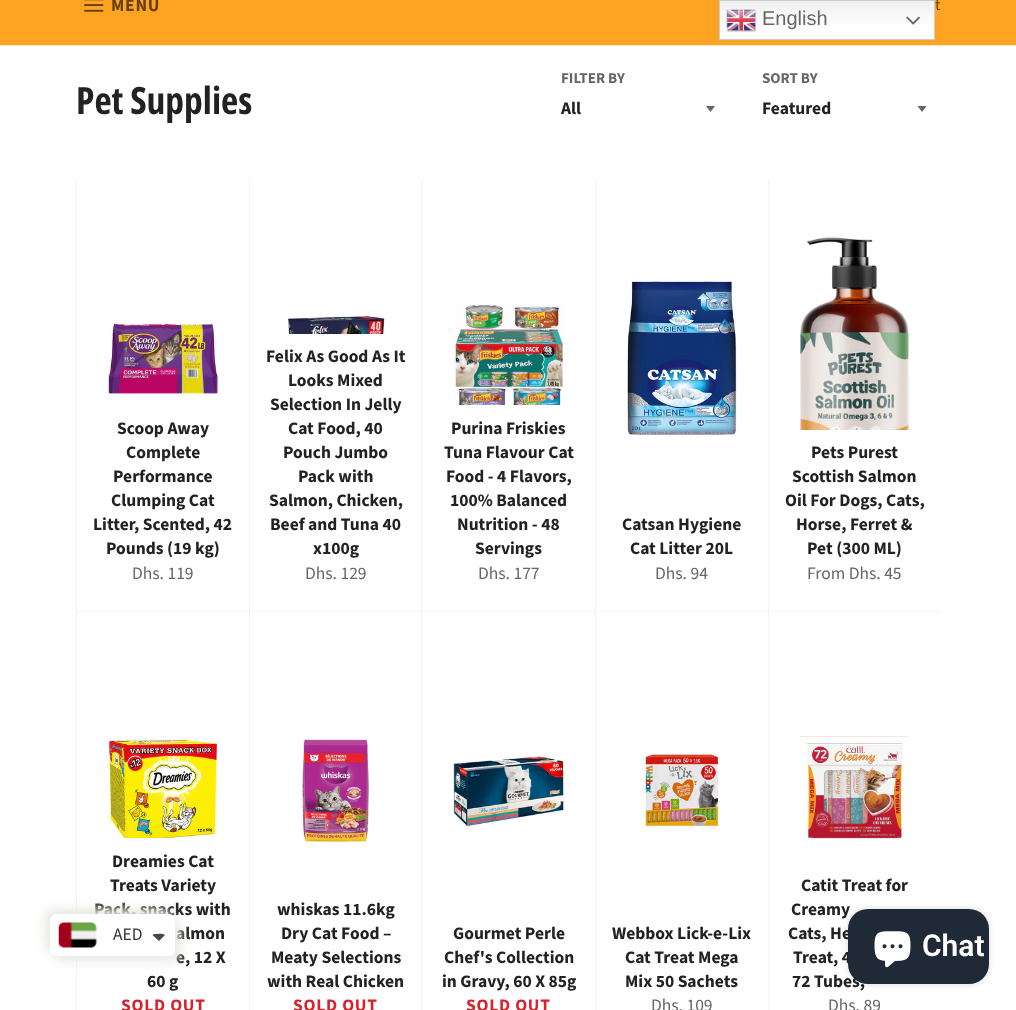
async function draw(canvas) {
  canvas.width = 1016;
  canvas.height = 1010;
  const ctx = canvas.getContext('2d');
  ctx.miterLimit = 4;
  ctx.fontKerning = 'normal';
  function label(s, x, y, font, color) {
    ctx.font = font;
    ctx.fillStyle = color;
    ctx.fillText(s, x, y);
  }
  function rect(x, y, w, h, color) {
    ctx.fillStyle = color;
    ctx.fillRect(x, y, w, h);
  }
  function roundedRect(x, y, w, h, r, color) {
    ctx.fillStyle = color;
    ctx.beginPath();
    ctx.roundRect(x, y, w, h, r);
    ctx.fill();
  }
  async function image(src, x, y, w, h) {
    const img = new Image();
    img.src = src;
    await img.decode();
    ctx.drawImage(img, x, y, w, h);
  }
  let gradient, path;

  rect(0, 0, 1016, 1010, '#fff');
  rect(0, 44, 1016, 1, '#ffa525');
  rect(0, 0, 1016, 44, '#ffa422');
  rect(0, 45, 1016, 1, '#ffe4c9');
  await image('assets/img1.png', 84, 0, 20, 12);
  ctx.letterSpacing = '0.75px';
  label('MENU', 111, 11, 'bold 17.5px Source Sans Pro', '#66410e');
  ctx.letterSpacing = '0px';
  label('t', 935, 10, '16px Source Sans Pro', '#66410e');
  gradient = ctx.createLinearGradient(827, 0, 827, 40);
  gradient.addColorStop(0, '#efefef');
  gradient.addColorStop(0.7, '#fff');
  ctx.fillStyle = gradient;
  ctx.fillRect(720, 1, 214, 38);
  ctx.strokeStyle = '#ccc';
  ctx.strokeRect(719.5, 0.5, 215, 39);
  await image('assets/img2.png', 726, 9, 31, 23);
  label('English', 762, 25, '20px Liberation Sans', '#666');
  await image('assets/img3.png', 906, 16, 14, 9);
  label('Pet Supplies', 76, 114, 'bold 37.5px Open Sans Condensed', '#222');
  label('FILTER BY', 561, 83, 'bold 15px Source Sans Pro', '#666');
  path = new Path2D('M706 106L710.5 112L715 106Z');
  ctx.fill(path);
  label('All', 561, 114, 'bold 17.5px Source Sans Pro', '#222');
  label('SORT BY', 762, 83, 'bold 15px Source Sans Pro', '#666');
  path = new Path2D('M917.5 106L922 112L926.5 106Z');
  ctx.fill(path);
  label('Featured', 762, 114, 'bold 17.5px Source Sans Pro', '#222');
  rect(76, 611, 864, 1, '#f4f4f4');
  rect(76, 180, 1, 830, '#f4f4f4');
  await image('assets/img4.png', 108, 323, 110, 71);
  label('Scoop Away', 117, 434, 'bold 17.5px Source Sans Pro', '#222');
  label('Complete', 126, 458, 'bold 17.5px Source Sans Pro', '#222');
  label('Performance', 113, 482, 'bold 17.5px Source Sans Pro', '#222');
  label('Clumping Cat', 111, 506, 'bold 17.5px Source Sans Pro', '#222');
  label('Litter, Scented, 42', 93, 530, 'bold 17.5px Source Sans Pro', '#222');
  label('Pounds (19 kg)', 106, 554, 'bold 17.5px Source Sans Pro', '#222');
  label('Dhs. 119', 132, 579, '17.5px Source Sans Pro', '#666');
  rect(249, 180, 1, 830, '#f4f4f4');
  await image('assets/img5.png', 286, 313, 100, 21);
  label('Felix As Good As It', 266, 362, 'bold 17.5px Source Sans Pro', '#222');
  label('Looks Mixed', 288, 386, 'bold 17.5px Source Sans Pro', '#222');
  label('Selection In Jelly', 270, 410, 'bold 17.5px Source Sans Pro', '#222');
  label('Cat Food, 40', 288, 434, 'bold 17.5px Source Sans Pro', '#222');
  label('Pouch Jumbo', 283, 458, 'bold 17.5px Source Sans Pro', '#222');
  label('Pack with', 298, 482, 'bold 17.5px Source Sans Pro', '#222');
  label('Salmon, Chicken,', 269, 506, 'bold 17.5px Source Sans Pro', '#222');
  label('Beef and Tuna 40', 270, 530, 'bold 17.5px Source Sans Pro', '#222');
  label('x100g', 313, 554, 'bold 17.5px Source Sans Pro', '#222');
  label('Dhs. 129', 305, 579, '17.5px Source Sans Pro', '#666');
  rect(421, 180, 1, 830, '#f4f4f4');
  await image('assets/img6.png', 454, 304, 110, 101);
  label('Purina Friskies', 451, 434, 'bold 17.5px Source Sans Pro', '#222');
  label('Tuna Flavour Cat', 444, 458, 'bold 17.5px Source Sans Pro', '#222');
  label('Food - 4 Flavors,', 446, 482, 'bold 17.5px Source Sans Pro', '#222');
  label('100% Balanced', 450, 506, 'bold 17.5px Source Sans Pro', '#222');
  label('Nutrition - 48', 457, 530, 'bold 17.5px Source Sans Pro', '#222');
  label('Servings', 475, 554, 'bold 17.5px Source Sans Pro', '#222');
  label('Dhs. 177', 478, 579, '17.5px Source Sans Pro', '#666');
  rect(595, 180, 1, 830, '#f4f4f4');
  await image('assets/img7.png', 627, 281, 110, 154);
  label('Catsan Hygiene', 622, 530, 'bold 17.5px Source Sans Pro', '#222');
  label('Cat Litter 20L', 630, 554, 'bold 17.5px Source Sans Pro', '#222');
  label('Dhs. 94', 655, 579, '17.5px Source Sans Pro', '#666');
  rect(768, 180, 1, 830, '#f4f4f4');
  await image('assets/img8.png', 800, 237, 109, 193);
  label('Pets Purest', 811, 458, 'bold 17.5px Source Sans Pro', '#222');
  label('Scottish Salmon', 792, 482, 'bold 17.5px Source Sans Pro', '#222');
  label('Oil For Dogs, Cats,', 785, 506, 'bold 17.5px Source Sans Pro', '#222');
  label('Horse, Ferret &', 796, 530, 'bold 17.5px Source Sans Pro', '#222');
  label('Pet (300 ML)', 807, 554, 'bold 17.5px Source Sans Pro', '#222');
  label('From Dhs. 45', 807, 579, '17.5px Source Sans Pro', '#666');
  await image('assets/img9.png', 108, 740, 110, 98);
  label('Dreamies Cat', 112, 867, 'bold 17.5px Source Sans Pro', '#222');
  label('Treats Variety', 110, 891, 'bold 17.5px Source Sans Pro', '#222');
  label('Pack, snacks with', 94, 915, 'bold 17.5px Source Sans Pro', '#222');
  label('almon', 176, 939, 'bold 17.5px Source Sans Pro', '#222');
  label('e, 12 X', 176, 963, 'bold 17.5px Source Sans Pro', '#222');
  label('60 g', 147, 987, 'bold 17.5px Source Sans Pro', '#222');
  ctx.letterSpacing = '0.75px';
  label('SOLD OUT', 121, 1011, 'bold 17.5px Source Sans Pro', '#d8232f');
  await image('assets/img10.png', 301, 736, 68, 107);
  ctx.letterSpacing = '0px';
  label('whiskas 11.6kg', 277, 915, 'bold 17.5px Source Sans Pro', '#222');
  label('Dry Cat Food –', 281, 939, 'bold 17.5px Source Sans Pro', '#222');
  label('Meaty Selections', 271, 963, 'bold 17.5px Source Sans Pro', '#222');
  label('with Real Chicken', 267, 987, 'bold 17.5px Source Sans Pro', '#222');
  ctx.letterSpacing = '0.75px';
  label('SOLD OUT', 293, 1011, 'bold 17.5px Source Sans Pro', '#d8232f');
  await image('assets/img11.png', 453, 756, 111, 71);
  ctx.letterSpacing = '0px';
  label('Gourmet Perle', 453, 939, 'bold 17.5px Source Sans Pro', '#222');
  label('Chef\'s Collection', 444, 963, 'bold 17.5px Source Sans Pro', '#222');
  label('in Gravy, 60 X 85g', 442, 987, 'bold 17.5px Source Sans Pro', '#222');
  ctx.letterSpacing = '0.75px';
  label('SOLD OUT', 466, 1011, 'bold 17.5px Source Sans Pro', '#d8232f');
  await image('assets/img12.png', 642, 754, 78, 74);
  ctx.letterSpacing = '0px';
  label('Webbox Lick-e-Lix', 612, 939, 'bold 17.5px Source Sans Pro', '#222');
  label('Cat Treat Mega', 625, 963, 'bold 17.5px Source Sans Pro', '#222');
  label('Mix 50 Sachets', 625, 987, 'bold 17.5px Source Sans Pro', '#222');
  label('Dhs. 109', 651, 1011, '17.5px Source Sans Pro', '#666');
  await image('assets/img13.png', 800, 736, 109, 103);
  label('Catit Treat for', 801, 891, 'bold 17.5px Source Sans Pro', '#222');
  label('Creamy', 791, 915, 'bold 17.5px Source Sans Pro', '#222');
  label('Cats, He', 788, 939, 'bold 17.5px Source Sans Pro', '#222');
  label('Treat, 4', 793, 963, 'bold 17.5px Source Sans Pro', '#222');
  label('72 Tubes,', 792, 987, 'bold 17.5px Source Sans Pro', '#222');
  label('Dhs. 89', 828, 1011, '17.5px Source Sans Pro', '#666');
  ctx.fillStyle = '#e8e8e2';
  ctx.filter = 'blur(5.5px)';
  ctx.beginPath();
  ctx.roundRect(45, 909, 125, 42, 6);
  ctx.fill();
  ctx.filter = 'none';
  ctx.filter = 'blur(5.5px)';
  ctx.beginPath();
  ctx.roundRect(55, 919, 125, 42, 6);
  ctx.fill();
  ctx.filter = 'none';
  roundedRect(50, 914, 125, 42, 6, '#fff');
  await image('assets/img14.png', 58, 922, 39, 26);
  label('AED', 113, 940, '17.5px Source Sans Pro', '#333');
  ctx.fillStyle = '#474942';
  path = new Path2D('M155 934C157.5 934 163 933 165 935L159 941L152.5 935C153 934.5 154 934 155 934Z');
  ctx.fill(path);
  ctx.fillStyle = '#00000026';
  ctx.filter = 'blur(3px)';
  ctx.beginPath();
  ctx.roundRect(848, 909, 141, 75, 20);
  ctx.fill();
  ctx.filter = 'none';
  roundedRect(848, 909, 141, 75, 20, '#202a36');
  await image('assets/img15.png', 874, 931, 37, 37);
  label('Chat', 922, 956, '600 30px Roboto', '#fff');
}

draw(document.querySelector('canvas'));
